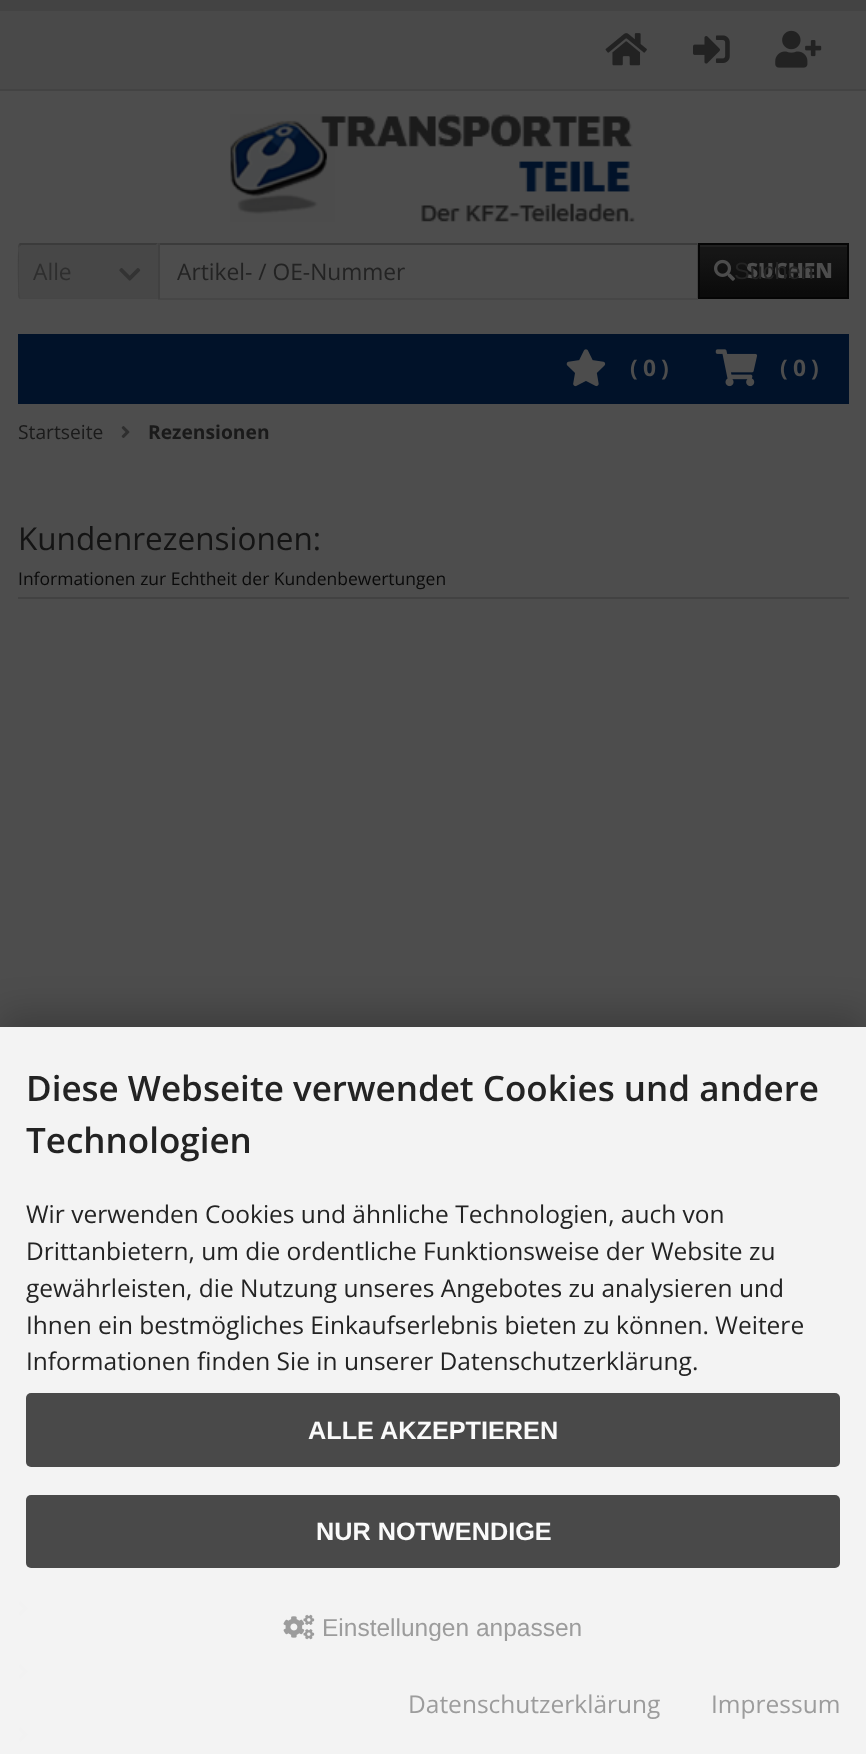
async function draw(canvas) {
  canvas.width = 866;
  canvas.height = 1754;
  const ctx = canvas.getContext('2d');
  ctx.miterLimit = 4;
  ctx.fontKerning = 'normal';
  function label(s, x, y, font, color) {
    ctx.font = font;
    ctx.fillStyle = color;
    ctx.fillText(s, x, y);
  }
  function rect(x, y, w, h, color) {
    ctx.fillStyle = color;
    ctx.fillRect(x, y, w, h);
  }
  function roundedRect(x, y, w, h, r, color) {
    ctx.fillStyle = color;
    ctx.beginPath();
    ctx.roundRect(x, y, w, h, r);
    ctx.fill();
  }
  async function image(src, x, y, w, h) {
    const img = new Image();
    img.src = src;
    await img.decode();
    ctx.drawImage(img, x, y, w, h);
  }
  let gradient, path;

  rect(0, 0, 866, 1754, '#4d4d4d');
  rect(0, 11, 866, 78, '#494949');
  rect(0, 0, 866, 11, '#434343');
  rect(0, 89, 866, 2, '#434343');
  await image('assets/img1.png', 605, 33, 42, 33);
  await image('assets/img2.png', 693, 35, 37, 29);
  await image('assets/img3.png', 775, 30, 47, 38);
  await image('assets/img4.png', 230, 114, 405, 108);
  ctx.fillStyle = '#474747';
  ctx.beginPath();
  ctx.roundRect(18, 243, 140, 56, [4, 0, 0, 4]);
  ctx.fill();
  ctx.fillStyle = '#3b3b3b';
  path = new Path2D('M21 245L20 246L19 244L20 243H158L156 245Z');
  ctx.fill(path);
  ctx.fillStyle = '#474747';
  path = new Path2D('M158 243V299L156 298V245Z');
  ctx.fill(path);
  ctx.fillStyle = '#464646';
  path = new Path2D('M157 299H19V298L20 297L21 298H156Z');
  ctx.fill(path);
  ctx.fillStyle = '#414141';
  path = new Path2D('M19 298C18 297 17 247 19 244L20 246C17 248 19 252 19 255C19 260 18 296 20 297Z');
  ctx.fill(path);
  label('Alle', 33, 280, '22.75px Open Sans', '#2e2e2e');
  await image('assets/img5.png', 119, 268, 22, 13);
  rect(158, 243, 540, 2, '#3b3b3b');
  rect(697, 243, 1, 56, '#414141');
  rect(158, 298, 540, 2, '#464646');
  rect(158, 243, 2, 56, '#414141');
  label('Artikel- / OE-Nummer', 177, 280, '22.75px Open Sans', '#232323');
  gradient = ctx.createLinearGradient(700, 245, 700, 298);
  gradient.addColorStop(0.15, '#161616');
  gradient.addColorStop(0.9, '#0b0b0b');
  ctx.fillStyle = gradient;
  ctx.fillRect(700, 247, 147, 50);
  rect(700, 245, 147, 2, '#202020');
  ctx.strokeStyle = '#050505';
  ctx.lineWidth = 2;
  ctx.strokeRect(699, 244, 149, 54);
  await image('assets/img6.png', 714, 259, 21, 22);
  label('SUCHEN', 746, 278, '800 21px Open Sans', '#4d4d4d');
  label('Suchen', 734, 279, '23.5px Liberation Sans', '#232323');
  rect(18, 334, 831, 70, '#011229');
  await image('assets/img7.png', 566, 349, 40, 38);
  label('(', 630, 376, 'bold 22.75px Open Sans', '#4d4d4d');
  label('0', 643, 376, 'bold 22.75px Open Sans', '#4d4d4d');
  label(')', 661, 376, 'bold 22.75px Open Sans', '#4d4d4d');
  await image('assets/img8.png', 715, 349, 43, 38);
  label('(', 780, 376, 'bold 22.75px Open Sans', '#4d4d4d');
  label('0', 793, 376, 'bold 22.75px Open Sans', '#4d4d4d');
  label(')', 811, 376, 'bold 22.75px Open Sans', '#4d4d4d');
  label('Startseite', 18, 439, '19.25px Open Sans', '#1a1a1a');
  await image('assets/img9.png', 121, 426, 9, 12);
  label('Rezensionen', 148, 439, 'bold 19.25px Open Sans', '#1a1a1a');
  rect(18, 597, 831, 2, '#424242');
  label('Kundenrezensionen:', 18, 550, '31.5px Open Sans', '#141414');
  label('Informationen zur Echtheit der Kundenbewertungen', 18, 585, '17.5px Open Sans', '#0a0a0a');
  rect(0, 1454, 866, 300, '#474747');
  rect(18, 1559, 831, 2, '#3d3d3d');
  path = new Path2D('M17.5 1640.5H849');
  ctx.strokeStyle = '#3d3d3d';
  ctx.lineWidth = 1.8;
  ctx.setLineDash([1.75, 1.75]);
  ctx.stroke(path);
  await image('assets/img10.png', 18, 1601, 10, 15);
  path = new Path2D('M17.5 1703.5H849');
  ctx.stroke(path);
  await image('assets/img10.png', 18, 1664, 10, 15);
  await image('assets/img10.png', 18, 1727, 10, 15);
  ctx.save();
  path = new Path2D('M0 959H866V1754H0ZM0 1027H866V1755H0Z');
  ctx.clip(path, 'evenodd');
  ctx.fillStyle = '#02020233';
  ctx.filter = 'blur(17.5px)';
  ctx.beginPath();
  ctx.rect(0, 1013, 866, 728);
  ctx.fill();
  ctx.filter = 'none';
  ctx.restore();
  rect(0, 1027, 866, 727, '#f9f9f9f7');
  label('Diese Webseite verwendet Cookies und andere', 26, 1101, '600 35px Open Sans', '#232323');
  label('Technologien', 26, 1153, '600 35px Open Sans', '#232323');
  label('Wir verwenden Cookies und ähnliche Technologien, auch von', 26, 1223, '24.5px Open Sans', '#232323');
  label('Drittanbietern, um die ordentliche Funktionsweise der Website zu', 26, 1260, '24.5px Open Sans', '#232323');
  label('gewährleisten, die Nutzung unseres Angebotes zu analysieren und', 26, 1297, '24.5px Open Sans', '#232323');
  label('Ihnen ein bestmögliches Einkaufserlebnis bieten zu können. Weitere', 26, 1334, '24.5px Open Sans', '#232323');
  label('Informationen finden Sie in unserer Datenschutzerklärung.', 26, 1370, '24.5px Open Sans', '#232323');
  roundedRect(26, 1393, 814, 74, 5, '#494949');
  label('ALLE AKZEPTIEREN', 308, 1439, 'bold 25.25px Liberation Sans', '#fafafa');
  roundedRect(26, 1495, 814, 73, 5, '#494949');
  label('NUR NOTWENDIGE', 316, 1540, 'bold 25.25px Liberation Sans', '#fafafa');
  await image('assets/img11.png', 283, 1614, 32, 26);
  label('Einstellungen anpassen', 322, 1636, '24.5px Liberation Sans', '#9c9c9c');
  label('Datenschutzerklärung', 408, 1713, '24.5px Open Sans', '#9c9c9c');
  label('Impressum', 711, 1713, '24.5px Open Sans', '#9c9c9c');
}

draw(document.querySelector('canvas'));
